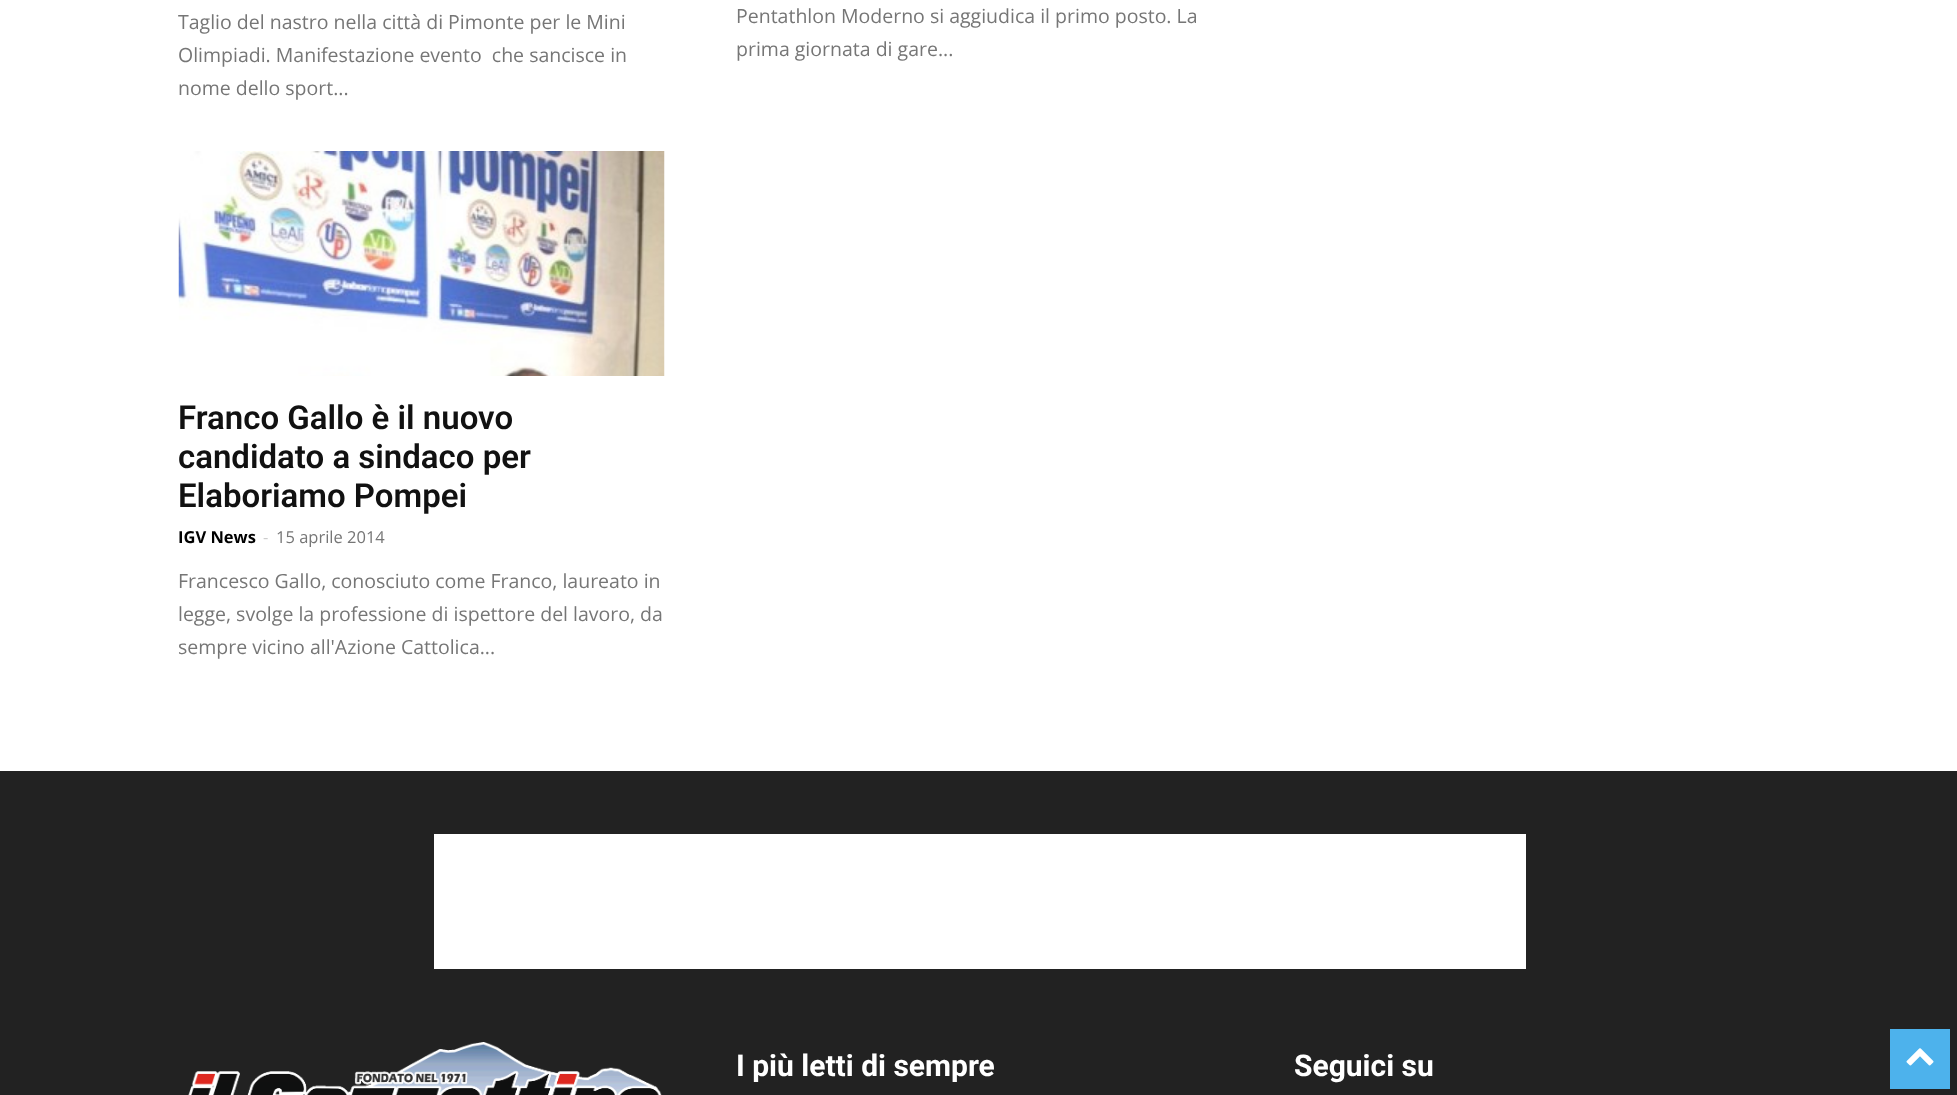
async function draw(canvas) {
  canvas.width = 1957;
  canvas.height = 1095;
  const ctx = canvas.getContext('2d');
  ctx.miterLimit = 4;
  ctx.fontKerning = 'normal';
  function label(s, x, y, font, color) {
    ctx.font = font;
    ctx.fillStyle = color;
    ctx.fillText(s, x, y);
  }
  function rect(x, y, w, h, color) {
    ctx.fillStyle = color;
    ctx.fillRect(x, y, w, h);
  }
  async function image(src, x, y, w, h) {
    const img = new Image();
    img.src = src;
    await img.decode();
    ctx.drawImage(img, x, y, w, h);
  }

  rect(0, 0, 1957, 1095, '#fff');
  label('Taglio del nastro nella città di Pimonte per le Mini', 178, 29, '19.5px Open Sans', '#767676');
  label('Olimpiadi. Manifestazione evento  che sancisce in', 178, 62, '19.5px Open Sans', '#767676');
  label('nome dello sport...', 178, 95, '19.5px Open Sans', '#767676');
  label('Pentathlon Moderno si aggiudica il primo posto. La', 736, 23, '19.5px Open Sans', '#767676');
  label('prima giornata di gare...', 736, 56, '19.5px Open Sans', '#767676');
  await image('assets/img1.png', 178, 151, 487, 225);
  label('Franco Gallo è il nuovo', 178, 429, '600 33px Roboto', '#111');
  label('candidato a sindaco per', 178, 468, '600 33px Roboto', '#111');
  label('Elaboriamo Pompei', 178, 507, '600 33px Roboto', '#111');
  label('IGV News', 178, 543, 'bold 16.5px Open Sans', '#000');
  label('-', 263, 543, '16.5px Open Sans', '#ccc');
  label('15 aprile 2014', 276, 543, '16.5px Open Sans', '#767676');
  label('Francesco Gallo, conosciuto come Franco, laureato in', 178, 588, '19.5px Open Sans', '#767676');
  label('legge, svolge la professione di ispettore del lavoro, da', 178, 621, '19.5px Open Sans', '#767676');
  label('sempre vicino all\'Azione Cattolica...', 178, 654, '19.5px Open Sans', '#767676');
  rect(0, 771, 1957, 324, '#222');
  rect(434, 834, 1092, 135, '#fff');
  await image('assets/img2.png', 188, 1042, 474, 53);
  label('I più letti di sempre', 736, 1076, 'bold 30px Roboto', '#fff');
  label('Seguici su', 1294, 1076, 'bold 30px Roboto', '#fff');
  rect(1890, 1029, 60, 60, '#4db2ec');
  await image('assets/img3.png', 1906, 1048, 28, 18);
}

draw(document.querySelector('canvas'));
